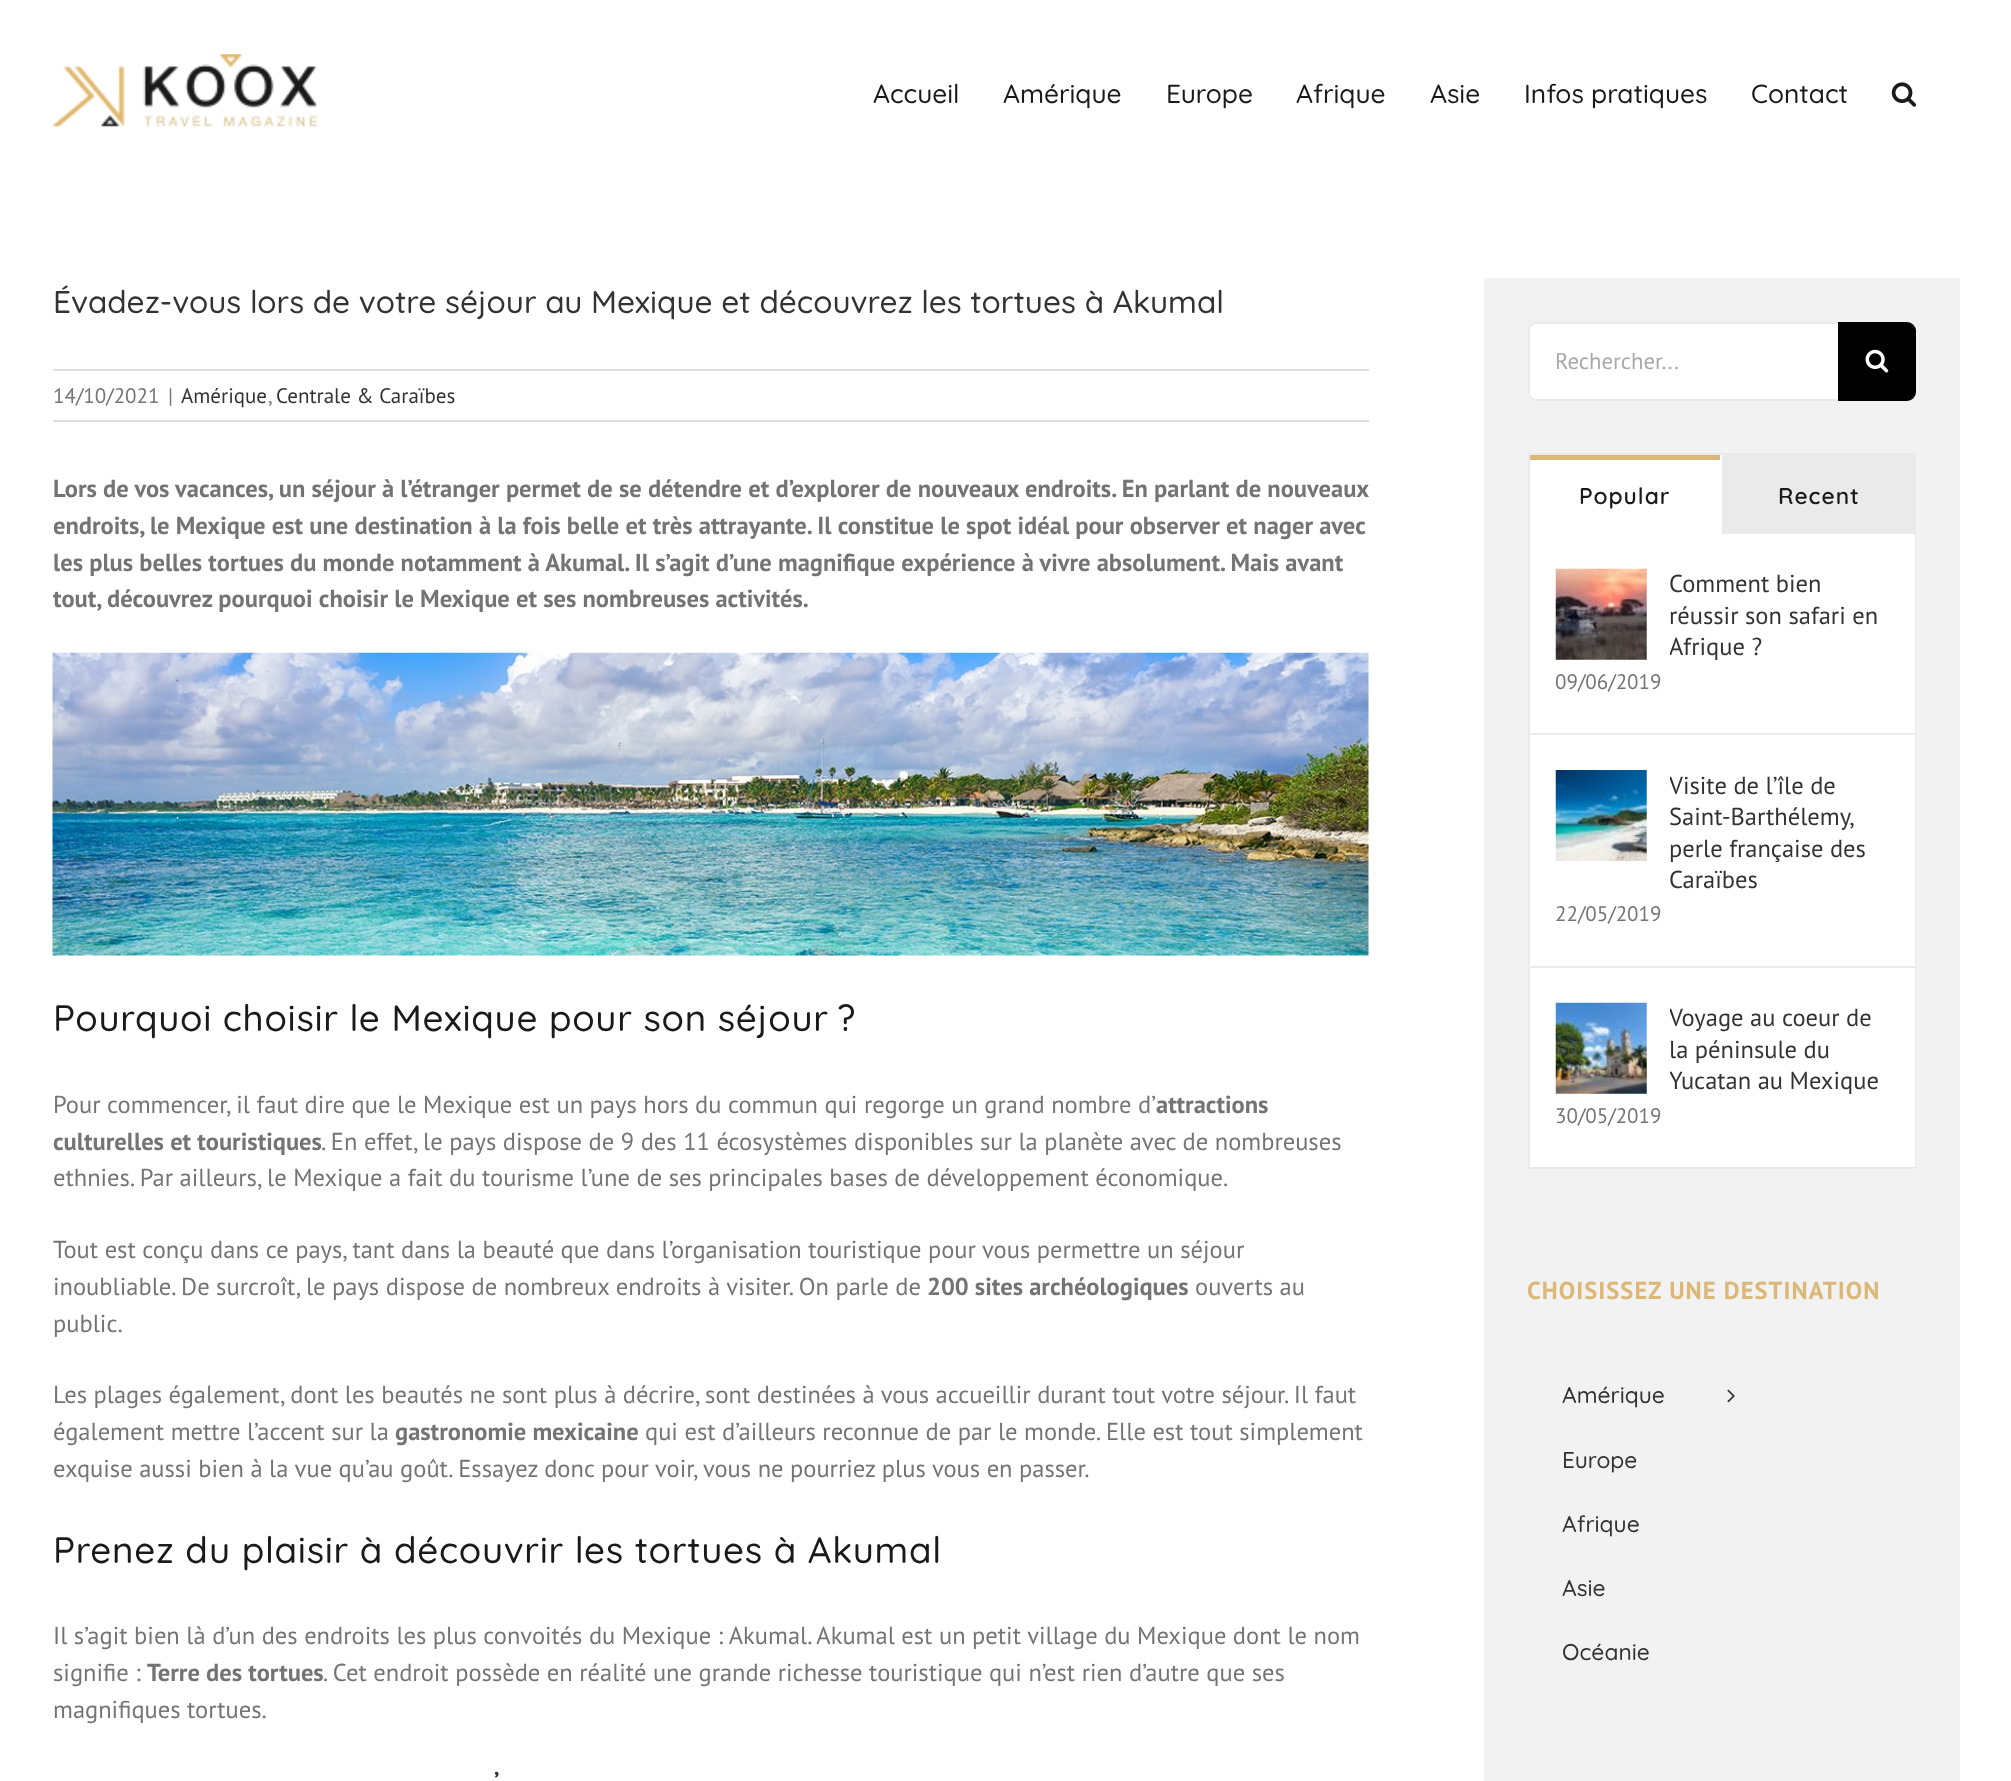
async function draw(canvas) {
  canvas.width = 2011;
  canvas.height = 1781;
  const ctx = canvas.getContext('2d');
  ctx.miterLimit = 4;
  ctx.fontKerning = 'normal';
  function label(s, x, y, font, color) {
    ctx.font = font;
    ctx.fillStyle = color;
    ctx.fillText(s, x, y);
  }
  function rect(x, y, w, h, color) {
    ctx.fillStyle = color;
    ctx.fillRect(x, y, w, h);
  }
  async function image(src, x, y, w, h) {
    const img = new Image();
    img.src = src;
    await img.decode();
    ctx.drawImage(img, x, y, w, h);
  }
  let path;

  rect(0, 0, 2011, 1781, '#fff');
  await image('assets/img1.png', 52, 54, 265, 73);
  label('Accueil', 873, 103, '500 26.25px Quicksand', '#1a1a1a');
  label('Amérique', 1003, 103, '500 26.25px Quicksand', '#1a1a1a');
  label('Europe', 1166, 103, '500 26.25px Quicksand', '#1a1a1a');
  label('Afrique', 1296, 103, '500 26.25px Quicksand', '#1a1a1a');
  label('Asie', 1430, 103, '500 26.25px Quicksand', '#1a1a1a');
  label('Infos pratiques', 1524, 103, '500 26.25px Quicksand', '#1a1a1a');
  label('Contact', 1751, 103, '500 26.25px Quicksand', '#1a1a1a');
  await image('assets/img2.png', 1891, 82, 26, 25);
  label('Évadez-vous lors de votre séjour au Mexique et découvrez les tortues à Akumal', 53, 313, '500 31.5px Quicksand', '#333');
  rect(53, 369, 1316, 2, '#e0dede');
  rect(53, 420, 1316, 2, '#e0dede');
  label('14/10/2021', 53, 403, '21px PT Sans', '#747474');
  label('|', 168, 403, '21px PT Sans', '#747474');
  label('Amérique', 181, 403, '21px PT Sans', '#333');
  label(',', 268, 403, '21px PT Sans', '#747474');
  label('Centrale & Caraïbes', 276, 403, '21px PT Sans', '#333');
  label('Lors de vos vacances, un séjour à l’étranger permet de se détendre et d’explorer de nouveaux endroits. En parlant de nouveaux', 53, 497, 'bold 24.5px PT Sans', '#747474');
  label('endroits, le Mexique est une destination à la fois belle et très attrayante. Il constitue le spot idéal pour observer et nager avec', 53, 534, 'bold 24.5px PT Sans', '#747474');
  label('les plus belles tortues du monde notamment à Akumal. Il s’agit d’une magnifique expérience à vivre absolument. Mais avant', 53, 571, 'bold 24.5px PT Sans', '#747474');
  label('tout, découvrez pourquoi choisir le Mexique et ses nombreuses activités.', 53, 607, 'bold 24.5px PT Sans', '#747474');
  await image('assets/img3.png', 52, 652, 1317, 304);
  ctx.letterSpacing = '0.7px';
  label('Pourquoi choisir le Mexique pour son séjour ?', 53, 1031, '500 36.75px Quicksand', '#1a1a1a');
  ctx.letterSpacing = '0px';
  label('Pour commencer, il faut dire que le Mexique est un pays hors du commun qui regorge un grand nombre d’', 53, 1113, '24.5px PT Sans', '#747474');
  label('attractions', 1156, 1113, 'bold 24.5px PT Sans', '#747474');
  label('culturelles et touristiques', 53, 1150, 'bold 24.5px PT Sans', '#747474');
  label('. En effet, le pays dispose de 9 des 11 écosystèmes disponibles sur la planète avec de nombreuses', 321, 1150, '24.5px PT Sans', '#747474');
  label('ethnies. Par ailleurs, le Mexique a fait du tourisme l’une de ses principales bases de développement économique.', 53, 1186, '24.5px PT Sans', '#747474');
  label('Tout est conçu dans ce pays, tant dans la beauté que dans l’organisation touristique pour vous permettre un séjour', 53, 1258, '24.5px PT Sans', '#747474');
  label('inoubliable. De surcroît, le pays dispose de nombreux endroits à visiter. On parle de', 53, 1295, '24.5px PT Sans', '#747474');
  label('200 sites archéologiques', 927, 1295, 'bold 24.5px PT Sans', '#747474');
  label('ouverts au', 1195, 1295, '24.5px PT Sans', '#747474');
  label('public.', 53, 1332, '24.5px PT Sans', '#747474');
  label('Les plages également, dont les beautés ne sont plus à décrire, sont destinées à vous accueillir durant tout votre séjour. Il faut', 53, 1403, '24.5px PT Sans', '#747474');
  label('également mettre l’accent sur la', 53, 1440, '24.5px PT Sans', '#747474');
  label('gastronomie mexicaine', 395, 1440, 'bold 24.5px PT Sans', '#747474');
  label('qui est d’ailleurs reconnue de par le monde. Elle est tout simplement', 645, 1440, '24.5px PT Sans', '#747474');
  label('exquise aussi bien à la vue qu’au goût. Essayez donc pour voir, vous ne pourriez plus vous en passer.', 53, 1477, '24.5px PT Sans', '#747474');
  ctx.letterSpacing = '0.7px';
  label('Prenez du plaisir à découvrir les tortues à Akumal', 53, 1563, '500 36.75px Quicksand', '#1a1a1a');
  ctx.letterSpacing = '0px';
  label('Il s’agit bien là d’un des endroits les plus convoités du Mexique : Akumal. Akumal est un petit village du Mexique dont le nom', 53, 1644, '24.5px PT Sans', '#747474');
  label('signifie :', 53, 1681, '24.5px PT Sans', '#747474');
  label('Terre des tortues', 147, 1681, 'bold 24.5px PT Sans', '#747474');
  label('. Cet endroit possède en réalité une grande richesse touristique qui n’est rien d’autre que ses', 323, 1681, '24.5px PT Sans', '#747474');
  label('magnifiques tortues.', 53, 1718, '24.5px PT Sans', '#747474');
  label('’', 494, 1789, 'bold 24.5px PT Sans', '#333');
  rect(1484, 278, 476, 1503, '#f2f2f2');
  ctx.fillStyle = '#fff';
  ctx.beginPath();
  ctx.roundRect(1528, 322, 310, 79, [9, 0, 0, 9]);
  ctx.fill();
  ctx.fillStyle = '#eaeaea';
  path = new Path2D('M1536 324H1838V322H1537C1532 322 1528 326 1528 331V392C1528 397 1532 401 1537 401H1838V399H1536C1533 399 1530 396 1530 392V331C1530 327 1533 324 1536 324Z');
  ctx.fill(path);
  label('Rechercher...', 1555, 369, '22.75px PT Sans', '#aaa9a9');
  ctx.fillStyle = '#000';
  ctx.beginPath();
  ctx.roundRect(1838, 322, 78, 79, [0, 9, 9, 0]);
  ctx.fill();
  await image('assets/img4.png', 1865, 349, 24, 24);
  ctx.strokeStyle = '#ebeaea';
  ctx.lineWidth = 2;
  ctx.strokeRect(1529, 454, 386, 714);
  rect(1720, 455, 2, 79, '#fff');
  rect(1530, 460, 190, 74, '#fff');
  rect(1530, 455, 190, 5, '#dbb878');
  ctx.letterSpacing = '1px';
  label('Popular', 1579, 504, '600 22.75px Quicksand', '#1a1a1a');
  rect(1722, 455, 192, 79, '#ebeaea');
  label('Recent', 1778, 504, '600 22.75px Quicksand', '#1a1a1a');
  rect(1530, 534, 385, 633, '#fff');
  rect(1530, 733, 385, 2, '#ebeaea');
  await image('assets/img5.png', 1555, 568, 92, 92);
  ctx.letterSpacing = '0px';
  label('Comment bien', 1669, 592, '24.5px PT Sans', '#333');
  label('réussir son safari en', 1669, 624, '24.5px PT Sans', '#333');
  ctx.save();
  ctx.beginPath();
  ctx.rect(1670, 569, 218, 94);
  ctx.clip();
  label('Afrique ?', 1669, 655, '24.5px PT Sans', '#333');
  ctx.restore();
  label('09/06/2019', 1555, 689, '21px PT Sans', '#747474');
  rect(1530, 966, 385, 2, '#ebeaea');
  await image('assets/img6.png', 1555, 770, 92, 91);
  ctx.save();
  ctx.beginPath();
  ctx.rect(1670, 770, 218, 126);
  ctx.clip();
  label('Visite de l’île de', 1669, 794, '24.5px PT Sans', '#333');
  ctx.restore();
  label('Saint-Barthélemy,', 1669, 825, '24.5px PT Sans', '#333');
  label('perle française des', 1669, 857, '24.5px PT Sans', '#333');
  label('Caraïbes', 1669, 888, '24.5px PT Sans', '#333');
  label('22/05/2019', 1555, 921, '21px PT Sans', '#747474');
  await image('assets/img7.png', 1555, 1002, 92, 92);
  ctx.save();
  ctx.beginPath();
  ctx.rect(1670, 1003, 218, 94);
  ctx.clip();
  label('Voyage au coeur de', 1669, 1026, '24.5px PT Sans', '#333');
  ctx.restore();
  label('la péninsule du', 1669, 1058, '24.5px PT Sans', '#333');
  ctx.save();
  ctx.beginPath();
  ctx.rect(1670, 1003, 218, 94);
  ctx.clip();
  label('Yucatan au Mexique', 1669, 1089, '24.5px PT Sans', '#333');
  ctx.restore();
  label('30/05/2019', 1555, 1123, '21px PT Sans', '#747474');
  ctx.letterSpacing = '1.05px';
  label('CHOISISSEZ UNE DESTINATION', 1527, 1299, 'bold 24.5px PT Sans', '#dbb878');
  ctx.letterSpacing = '0px';
  label('Amérique', 1562, 1403, '500 22.75px Quicksand', '#333');
  await image('assets/img8.png', 1727, 1389, 8, 14);
  label('Europe', 1562, 1468, '500 22.75px Quicksand', '#333');
  label('Afrique', 1562, 1532, '500 22.75px Quicksand', '#333');
  label('Asie', 1562, 1596, '500 22.75px Quicksand', '#333');
  label('Océanie', 1562, 1660, '500 22.75px Quicksand', '#333');
}

draw(document.querySelector('canvas'));
